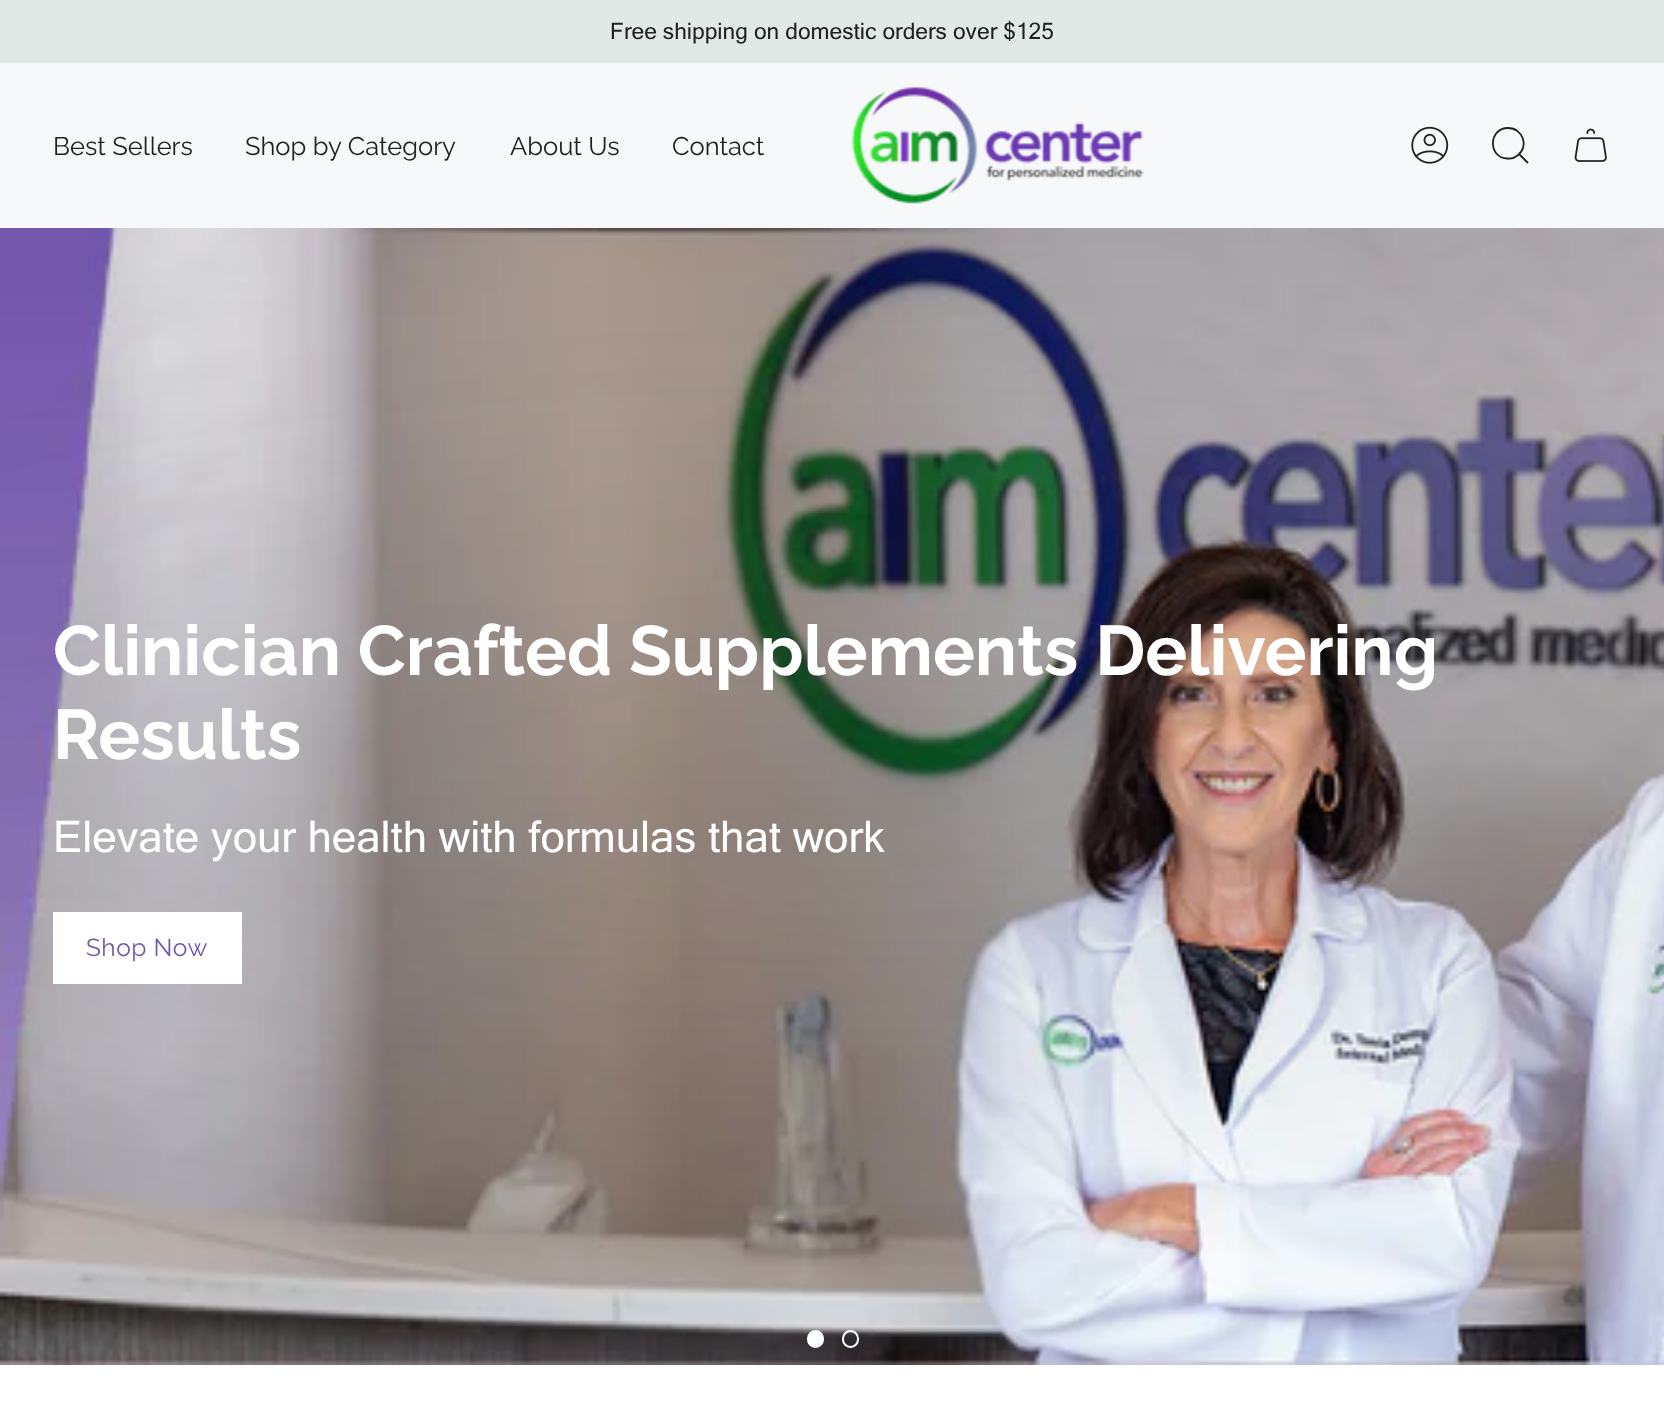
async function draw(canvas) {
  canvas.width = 1664;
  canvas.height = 1401;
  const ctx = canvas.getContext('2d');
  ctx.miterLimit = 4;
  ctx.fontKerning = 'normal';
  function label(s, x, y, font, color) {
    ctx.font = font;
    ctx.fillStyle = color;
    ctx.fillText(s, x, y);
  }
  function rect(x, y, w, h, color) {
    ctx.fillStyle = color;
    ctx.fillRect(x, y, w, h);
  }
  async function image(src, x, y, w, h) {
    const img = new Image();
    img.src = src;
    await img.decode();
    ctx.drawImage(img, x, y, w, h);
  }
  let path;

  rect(0, 0, 1664, 1401, '#fff');
  rect(0, 0, 1664, 63, '#e0e9e6');
  label('Free shipping on domestic orders over $125', 610, 39, '22.75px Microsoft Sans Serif', '#212121');
  rect(0, 63, 1664, 165, '#f7f8f9');
  label('Best Sellers', 53, 155, '25.5px Raleway', '#212121');
  label('Shop by Category', 245, 155, '25.5px Raleway', '#212121');
  label('About Us', 510, 155, '25.5px Raleway', '#212121');
  label('Contact', 672, 155, '25.5px Raleway', '#212121');
  await image('assets/img1.png', 851, 86, 293, 118);
  await image('assets/img2.png', 1411, 126, 38, 38);
  path = new Path2D('M1508 128C1523 128 1529.5 147 1517.5 155.5C1514.5 158 1511 159 1507.5 158.5C1487.5 158 1488.5 128 1508 128ZM1519 154L1528 163');
  ctx.strokeStyle = '#212121';
  ctx.lineWidth = 1.8;
  ctx.stroke(path);
  await image('assets/img3.png', 1574, 128, 33, 34);
  await image('assets/img4.png', 0, 228, 1664, 1137);
  label('Clinician Crafted Supplements Delivering', 53, 675, 'bold 70px Raleway', '#fff');
  label('Results', 53, 759, 'bold 70px Raleway', '#fff');
  label('Elevate your health with formulas that work', 53, 852, '43.75px Microsoft Sans Serif', '#fff');
  rect(53, 912, 189, 72, '#fff');
  ctx.letterSpacing = '0.5px';
  label('Shop Now', 86, 956, '24.5px Raleway', '#7357ad');
  ctx.fillStyle = '#fff';
  ctx.beginPath();
  ctx.roundRect(808, 1331, 15, 16, 7.5);
  ctx.fill();
  ctx.strokeStyle = '#fff';
  ctx.lineWidth = 2;
  ctx.stroke();
  ctx.beginPath();
  ctx.roundRect(843, 1331, 15, 16, 7.5);
  ctx.stroke();
}

draw(document.querySelector('canvas'));
